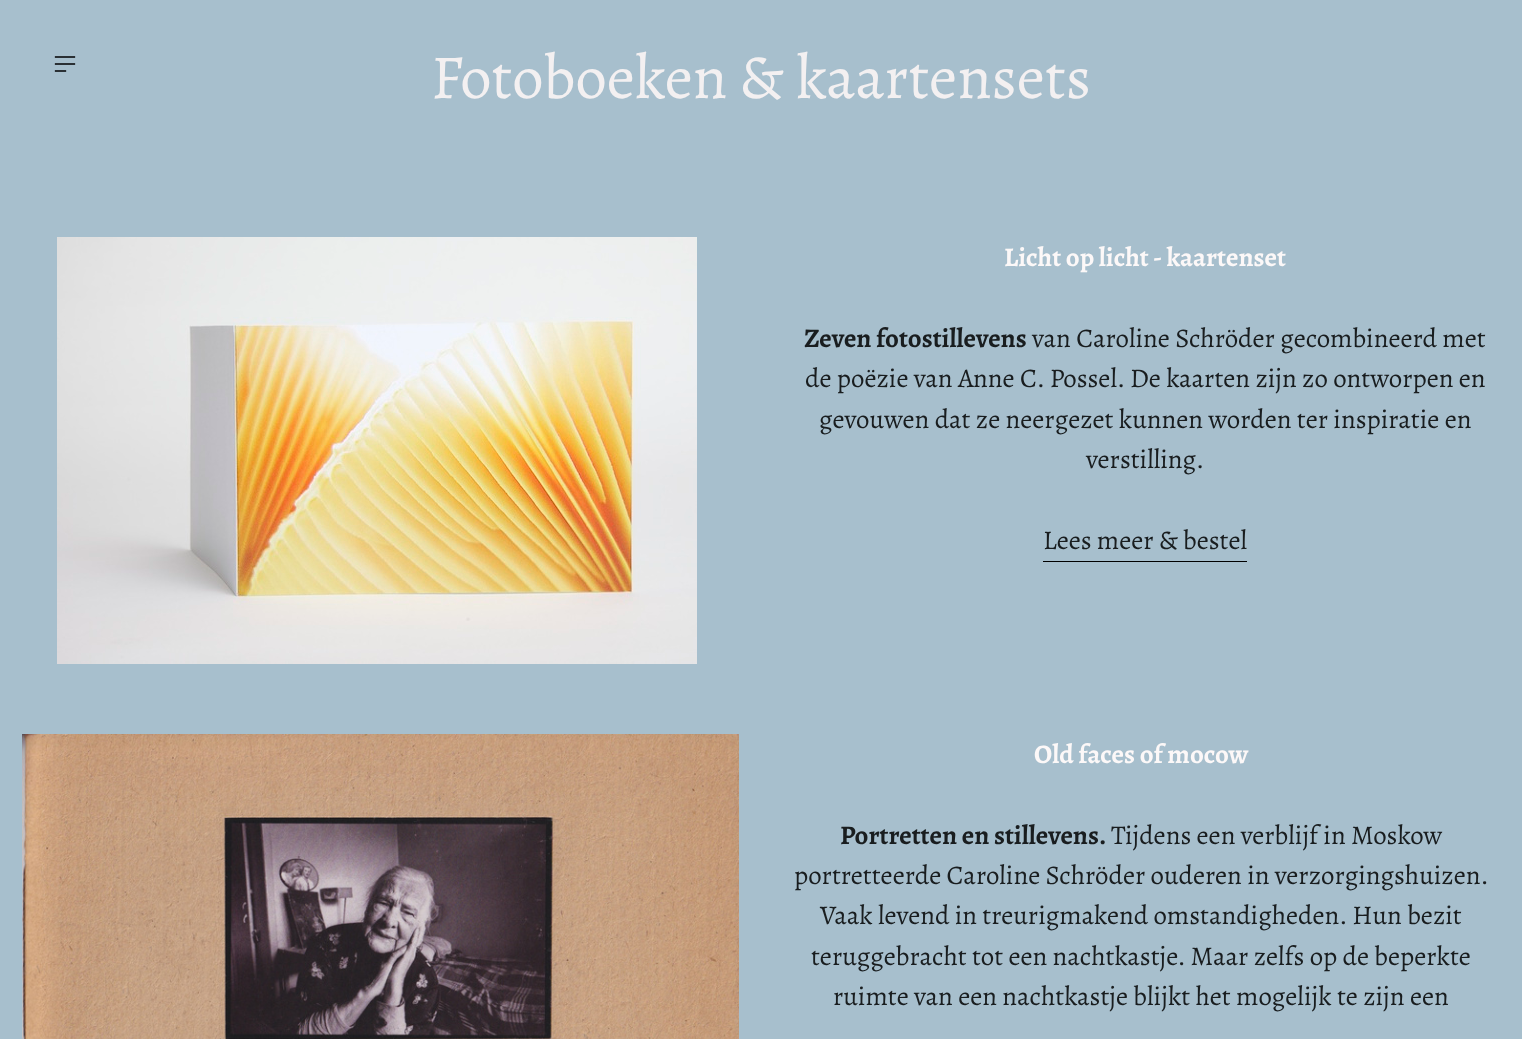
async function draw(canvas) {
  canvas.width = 1522;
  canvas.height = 1039;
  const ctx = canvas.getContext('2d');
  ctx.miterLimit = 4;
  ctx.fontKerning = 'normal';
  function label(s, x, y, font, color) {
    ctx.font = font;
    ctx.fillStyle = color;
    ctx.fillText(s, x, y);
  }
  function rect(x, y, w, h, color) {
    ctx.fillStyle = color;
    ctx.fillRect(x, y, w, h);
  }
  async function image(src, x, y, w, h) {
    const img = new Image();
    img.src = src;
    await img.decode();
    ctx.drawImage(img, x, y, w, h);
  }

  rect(0, 0, 1522, 1039, '#a7bfcd');
  await image('assets/img1.png', 54, 56, 22, 16);
  label('Fotoboeken & kaartensets', 431, 98, '62.75px Alegreya', '#f3f0f1');
  await image('assets/img2.png', 57, 237, 640, 427);
  label('Licht op licht - kaartenset', 1004, 266, 'bold 26.9px Alegreya', '#fcf8f8');
  label('Zeven fotostillevens', 804, 347, 'bold 26.9px Alegreya', '#191d1f');
  label('van Caroline Schröder gecombineerd met', 1032, 347, '26.9px Alegreya', '#191d1f');
  label('de poëzie van Anne C. Possel. De kaarten zijn zo ontworpen en', 805, 387, '26.9px Alegreya', '#191d1f');
  label('gevouwen dat ze neergezet kunnen worden ter inspiratie en', 819, 428, '26.9px Alegreya', '#191d1f');
  label('verstilling.', 1086, 468, '26.9px Alegreya', '#191d1f');
  label('Lees meer & bestel', 1043, 549, '26.9px Alegreya', '#191d1f');
  rect(1043, 561, 204, 1, '#000');
  await image('assets/img3.png', 22, 734, 717, 305);
  label('Old faces of mocow', 1034, 763, 'bold 26.9px Alegreya', '#fcf8f8');
  label('Portretten en stillevens', 840, 844, 'bold 26.9px Alegreya', '#191d1f');
  label('.', 1099, 844, 'bold 26.9px Alegreya', '#191d1f');
  label('Tijdens een verblijf in Moskow', 1111, 844, '26.9px Alegreya', '#191d1f');
  label('portretteerde Caroline Schröder ouderen in verzorgingshuizen.', 794, 884, '26.9px Alegreya', '#191d1f');
  label('Vaak levend in treurigmakend omstandigheden. Hun bezit', 820, 924, '26.9px Alegreya', '#191d1f');
  label('teruggebracht tot een nachtkastje. Maar zelfs op de beperkte', 811, 965, '26.9px Alegreya', '#191d1f');
  label('ruimte van een nachtkastje blijkt het mogelijk te zijn een', 833, 1005, '26.9px Alegreya', '#191d1f');
}

draw(document.querySelector('canvas'));
